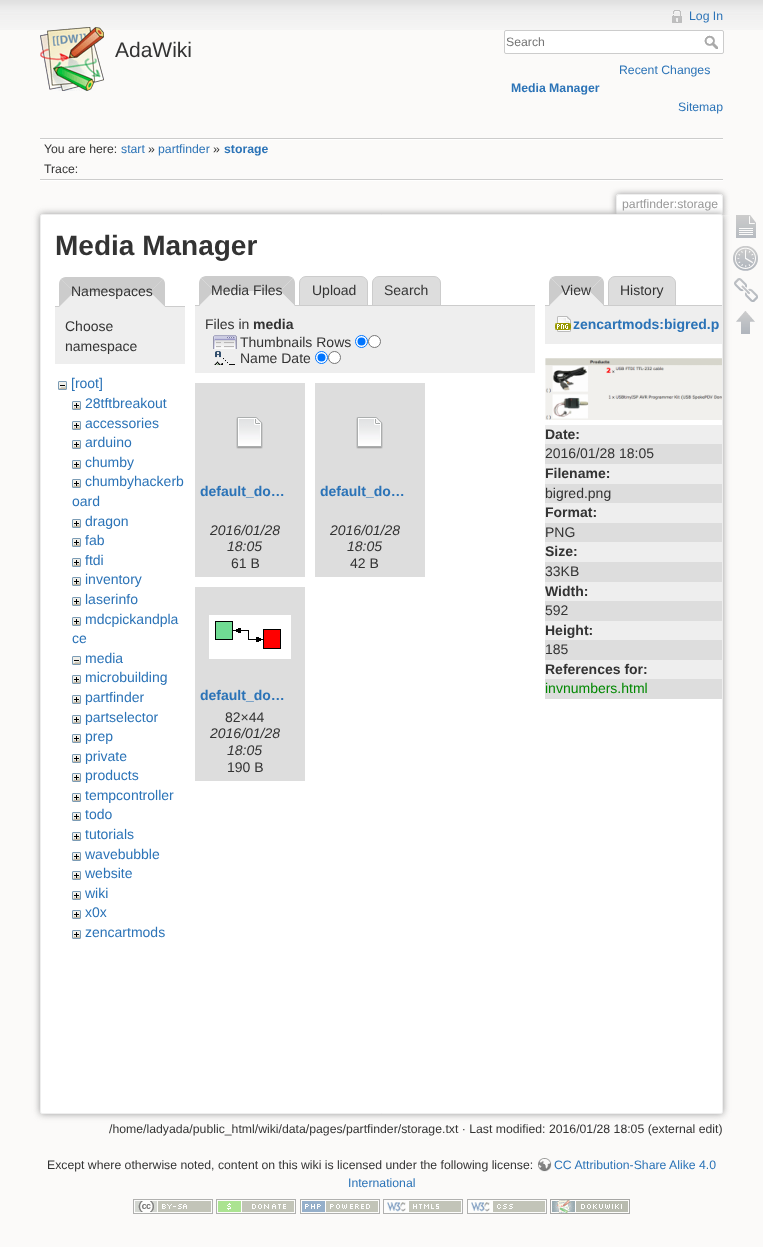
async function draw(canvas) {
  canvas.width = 763;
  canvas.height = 1247;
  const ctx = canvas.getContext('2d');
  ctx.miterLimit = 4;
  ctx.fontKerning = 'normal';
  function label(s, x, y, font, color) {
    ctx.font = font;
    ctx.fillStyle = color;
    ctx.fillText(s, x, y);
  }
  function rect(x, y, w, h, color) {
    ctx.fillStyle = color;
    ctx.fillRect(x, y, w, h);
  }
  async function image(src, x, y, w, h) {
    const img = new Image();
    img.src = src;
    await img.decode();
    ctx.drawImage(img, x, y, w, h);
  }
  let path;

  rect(0, 0, 763, 1247, '#fbfaf9');
  await image('assets/img1.png', 0, 0, 763, 30);
  await image('assets/img2.png', 40, 27, 64, 64);
  label('AdaWiki', 115, 57, '21px Liberation Sans', '#333');
  await image('assets/img3.png', 672, 10, 10, 13);
  label('Log In', 689, 20, '12.25px Liberation Sans', '#2b73b7');
  ctx.fillStyle = '#fff';
  ctx.beginPath();
  ctx.roundRect(504.5, 30.5, 219, 23, 1.5);
  ctx.fill();
  ctx.strokeStyle = '#ccc';
  ctx.stroke();
  label('Search', 506, 46, '12.25px Liberation Sans', '#757575');
  await image('assets/img4.png', 704, 35, 14, 14);
  label('Recent Changes', 619, 74, '12.25px Liberation Sans', '#2b73b7');
  label('Media Manager', 511, 92, 'bold 12.25px Liberation Sans', '#2b73b7');
  label('Sitemap', 678, 111, '12.25px Liberation Sans', '#2b73b7');
  rect(40, 138, 683, 1, '#ccc');
  rect(40, 180, 683, 1, '#fff');
  rect(40, 139, 683, 1, '#fff');
  label('You are here:', 44, 153, '12.25px Liberation Sans', '#333');
  label('start', 121, 153, '12.25px Liberation Sans', '#2b73b7');
  label('»', 148, 153, '12.25px Liberation Sans', '#333');
  label('partfinder', 158, 153, '12.25px Liberation Sans', '#2b73b7');
  label('»', 213, 153, '12.25px Liberation Sans', '#333');
  label('storage', 224, 153, 'bold 12.25px Liberation Sans', '#2b73b7');
  rect(40, 179, 683, 1, '#ccc');
  label('Trace:', 44, 173, '12.25px Liberation Sans', '#333');
  ctx.save();
  ctx.beginPath();
  ctx.rect(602, 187, 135, 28);
  ctx.clip();
  ctx.fillStyle = '#999';
  ctx.filter = 'blur(3px)';
  ctx.beginPath();
  ctx.roundRect(616, 194, 107, 21, 2);
  ctx.fill();
  ctx.filter = 'none';
  ctx.restore();
  ctx.fillStyle = '#fff';
  ctx.beginPath();
  ctx.roundRect(617, 195, 105, 20, [1, 1, 0, 0]);
  ctx.fill();
  rect(617, 194, 105, 1, '#eee');
  rect(722, 195, 1, 20, '#eee');
  rect(616, 195, 1, 20, '#eee');
  label('partfinder:storage', 622, 208, '12.25px Liberation Sans', '#999');
  ctx.filter = 'blur(3.5px)';
  ctx.beginPath();
  ctx.roundRect(40, 214, 683, 900, 2);
  ctx.fill();
  ctx.filter = 'none';
  ctx.fillStyle = '#fff';
  ctx.beginPath();
  ctx.roundRect(40.5, 214.5, 682, 899, 1.5);
  ctx.fill();
  ctx.strokeStyle = '#eee';
  ctx.stroke();
  label('Media Manager', 55, 255, 'bold 28px Liberation Sans', '#333');
  rect(55, 306, 130, 1, '#ccc');
  ctx.fillStyle = '#eee';
  ctx.beginPath();
  ctx.roundRect(59, 277, 106, 30, [7, 7, 0, 0]);
  ctx.fill();
  ctx.fillStyle = '#ccc';
  path = new Path2D('M66 277H159L163 279L150 292H74L61 279C62 278 64 277 66 277Z');
  ctx.fill(path);
  path = new Path2D('M163 279L150 292L165 307V284C165 282 164 280 163 279Z');
  ctx.fill(path);
  ctx.fillStyle = '#eee';
  path = new Path2D('M165 307L150 292H74L59 307Z');
  ctx.fill(path);
  ctx.fillStyle = '#ccc';
  path = new Path2D('M59 307V284C59 282 60 280 61 279L74 292Z');
  ctx.fill(path);
  label('Namespaces', 71, 296, '14px Liberation Sans', '#333');
  rect(55, 307, 130, 57, '#eee');
  label('Choose', 65, 331, '14px Liberation Sans', '#333');
  label('namespace', 65, 351, '14px Liberation Sans', '#333');
  await image('assets/img5.png', 58, 381, 9, 9);
  label('[root]', 71, 388, '14px Liberation Sans', '#2b73b7');
  await image('assets/img6.png', 72, 401, 9, 9);
  label('28tftbreakout', 85, 408, '14px Liberation Sans', '#2b73b7');
  await image('assets/img6.png', 72, 421, 9, 9);
  label('accessories', 85, 428, '14px Liberation Sans', '#2b73b7');
  await image('assets/img6.png', 72, 440, 9, 9);
  label('arduino', 85, 447, '14px Liberation Sans', '#2b73b7');
  await image('assets/img6.png', 72, 460, 9, 9);
  label('chumby', 85, 467, '14px Liberation Sans', '#2b73b7');
  await image('assets/img6.png', 72, 479, 9, 9);
  label('chumbyhackerb', 85, 486, '14px Liberation Sans', '#2b73b7');
  label('oard', 72, 506, '14px Liberation Sans', '#2b73b7');
  await image('assets/img6.png', 72, 519, 9, 9);
  label('dragon', 85, 526, '14px Liberation Sans', '#2b73b7');
  await image('assets/img6.png', 72, 538, 9, 9);
  label('fab', 85, 545, '14px Liberation Sans', '#2b73b7');
  await image('assets/img6.png', 72, 558, 9, 9);
  label('ftdi', 85, 565, '14px Liberation Sans', '#2b73b7');
  await image('assets/img6.png', 72, 577, 9, 9);
  label('inventory', 85, 584, '14px Liberation Sans', '#2b73b7');
  await image('assets/img6.png', 72, 597, 9, 9);
  label('laserinfo', 85, 604, '14px Liberation Sans', '#2b73b7');
  await image('assets/img6.png', 72, 617, 9, 9);
  label('mdcpickandpla', 85, 624, '14px Liberation Sans', '#2b73b7');
  label('ce', 72, 643, '14px Liberation Sans', '#2b73b7');
  await image('assets/img5.png', 72, 656, 9, 9);
  label('media', 85, 663, '14px Liberation Sans', '#2b73b7');
  await image('assets/img6.png', 72, 675, 9, 9);
  label('microbuilding', 85, 682, '14px Liberation Sans', '#2b73b7');
  await image('assets/img6.png', 72, 695, 9, 9);
  label('partfinder', 85, 702, '14px Liberation Sans', '#2b73b7');
  await image('assets/img6.png', 72, 715, 9, 9);
  label('partselector', 85, 722, '14px Liberation Sans', '#2b73b7');
  await image('assets/img6.png', 72, 734, 9, 9);
  label('prep', 85, 741, '14px Liberation Sans', '#2b73b7');
  await image('assets/img6.png', 72, 754, 9, 9);
  label('private', 85, 761, '14px Liberation Sans', '#2b73b7');
  await image('assets/img6.png', 72, 773, 9, 9);
  label('products', 85, 780, '14px Liberation Sans', '#2b73b7');
  await image('assets/img6.png', 72, 793, 9, 9);
  label('tempcontroller', 85, 800, '14px Liberation Sans', '#2b73b7');
  await image('assets/img6.png', 72, 812, 9, 9);
  label('todo', 85, 819, '14px Liberation Sans', '#2b73b7');
  await image('assets/img6.png', 72, 832, 9, 9);
  label('tutorials', 85, 839, '14px Liberation Sans', '#2b73b7');
  await image('assets/img6.png', 72, 852, 9, 9);
  label('wavebubble', 85, 859, '14px Liberation Sans', '#2b73b7');
  await image('assets/img6.png', 72, 871, 9, 9);
  label('website', 85, 878, '14px Liberation Sans', '#2b73b7');
  await image('assets/img6.png', 72, 891, 9, 9);
  label('wiki', 85, 898, '14px Liberation Sans', '#2b73b7');
  await image('assets/img6.png', 72, 910, 9, 9);
  label('x0x', 85, 917, '14px Liberation Sans', '#2b73b7');
  await image('assets/img6.png', 72, 930, 9, 9);
  label('zencartmods', 85, 937, '14px Liberation Sans', '#2b73b7');
  ctx.fillStyle = '#ccc';
  path = new Path2D('M206 276H288C290 276 292 277 293 278L280 291H214L201 278C202 277 204 276 206 276Z');
  ctx.fill(path);
  ctx.fillStyle = '#ddd';
  ctx.beginPath();
  ctx.roundRect(299.5, 276.5, 68, 29, [6.5, 6.5, 0, 0]);
  ctx.fill();
  ctx.strokeStyle = '#ccc';
  ctx.stroke();
  ctx.beginPath();
  ctx.roundRect(372.5, 276.5, 68, 29, [6.5, 6.5, 0, 0]);
  ctx.fill();
  ctx.stroke();
  rect(195, 305, 340, 1, '#ccc');
  path = new Path2D('M293 278L280 291L295 306V283C295 281 294 279 293 278Z');
  ctx.fill(path);
  ctx.fillStyle = '#eee';
  path = new Path2D('M295 306L280 291H214L199 306Z');
  ctx.fill(path);
  ctx.fillStyle = '#ccc';
  path = new Path2D('M199 306V283C199 281 200 279 201 278L214 291Z');
  ctx.fill(path);
  label('Media Files', 211, 295, '14px Liberation Sans', '#333');
  label('Upload', 312, 295, '14px Liberation Sans', '#333');
  label('Search', 384, 295, '14px Liberation Sans', '#333');
  rect(195, 306, 340, 67, '#eee');
  label('Files in', 205, 329, '14px Liberation Sans', '#333');
  label('media', 253, 329, 'bold 14px Liberation Sans', '#333');
  await image('assets/img7.png', 213, 335, 24, 14);
  label('Thumbnails Rows', 240, 347, '14px Liberation Sans', '#333');
  ctx.fillStyle = '#fff';
  ctx.beginPath();
  ctx.arc(361.5, 341.5, 6, 0, 2 * Math.PI);
  ctx.fill();
  ctx.strokeStyle = '#0075ff';
  ctx.stroke();
  ctx.fillStyle = '#0075ff';
  ctx.beginPath();
  ctx.arc(361.5, 341.5, 4, 0, 2 * Math.PI);
  ctx.fill();
  ctx.fillStyle = '#fff';
  ctx.beginPath();
  ctx.arc(374.5, 341.5, 6, 0, 2 * Math.PI);
  ctx.fill();
  ctx.strokeStyle = '#767676';
  ctx.stroke();
  await image('assets/img8.png', 214, 351, 21, 14);
  label('Name Date', 240, 363, '14px Liberation Sans', '#333');
  ctx.fillStyle = '#fff';
  ctx.beginPath();
  ctx.arc(321.5, 357.5, 6, 0, 2 * Math.PI);
  ctx.fill();
  ctx.strokeStyle = '#0075ff';
  ctx.stroke();
  ctx.fillStyle = '#0075ff';
  ctx.beginPath();
  ctx.arc(321.5, 357.5, 4, 0, 2 * Math.PI);
  ctx.fill();
  ctx.fillStyle = '#fff';
  ctx.beginPath();
  ctx.arc(334.5, 357.5, 6, 0, 2 * Math.PI);
  ctx.fill();
  ctx.strokeStyle = '#767676';
  ctx.stroke();
  rect(195, 383, 110, 194, '#ddd');
  await image('assets/img9.png', 236, 417, 27, 32);
  label('default_do…', 200, 496, 'bold 14px Liberation Sans', '#2b73b7');
  label('2016/01/28', 210, 535, 'italic 14px Liberation Sans', '#333');
  label('18:05', 227, 551, 'italic 14px Liberation Sans', '#333');
  label('61 B', 231, 568, '14px Liberation Sans', '#333');
  rect(315, 383, 110, 194, '#ddd');
  await image('assets/img9.png', 356, 417, 27, 32);
  label('default_do…', 320, 496, 'bold 14px Liberation Sans', '#2b73b7');
  label('2016/01/28', 330, 535, 'italic 14px Liberation Sans', '#333');
  label('18:05', 347, 551, 'italic 14px Liberation Sans', '#333');
  label('42 B', 350, 568, '14px Liberation Sans', '#333');
  rect(195, 587, 110, 194, '#ddd');
  await image('assets/img10.png', 209, 615, 82, 44);
  label('default_do…', 200, 700, 'bold 14px Liberation Sans', '#2b73b7');
  label('82×44', 225, 722, '14px Liberation Sans', '#333');
  label('2016/01/28', 210, 738, 'italic 14px Liberation Sans', '#333');
  label('18:05', 227, 755, 'italic 14px Liberation Sans', '#333');
  label('190 B', 227, 772, '14px Liberation Sans', '#333');
  ctx.fillStyle = '#ccc';
  path = new Path2D('M556 276H597C599 276 601 277 602 278L589 291H564L551 278C552 277 554 276 556 276Z');
  ctx.fill(path);
  ctx.fillStyle = '#ddd';
  ctx.beginPath();
  ctx.roundRect(608.5, 276.5, 67, 29, [6.5, 6.5, 0, 0]);
  ctx.fill();
  ctx.strokeStyle = '#ccc';
  ctx.stroke();
  rect(545, 305, 177, 1, '#ccc');
  path = new Path2D('M602 278L589 291L604 306V283C604 281 603 279 602 278Z');
  ctx.fill(path);
  ctx.fillStyle = '#eee';
  path = new Path2D('M604 306L589 291H564L549 306Z');
  ctx.fill(path);
  ctx.fillStyle = '#ccc';
  path = new Path2D('M549 306V283C549 281 550 279 551 278L564 291Z');
  ctx.fill(path);
  label('View', 561, 295, '14px Liberation Sans', '#333');
  label('History', 620, 295, '14px Liberation Sans', '#333');
  rect(545, 306, 177, 38, '#eee');
  await image('assets/img11.png', 555, 316, 16, 16);
  label('zencartmods:bigred.p', 573, 329, 'bold 14px Liberation Sans', '#2b73b7');
  await image('assets/img12.png', 545, 358, 177, 62);
  rect(545, 425, 177, 19, '#eee');
  label('Date:', 545, 439, 'bold 14px Liberation Sans', '#333');
  rect(545, 444, 177, 20, '#ddd');
  label('2016/01/28 18:05', 545, 458, '14px Liberation Sans', '#333');
  rect(545, 464, 177, 20, '#eee');
  label('Filename:', 545, 478, 'bold 14px Liberation Sans', '#333');
  rect(545, 484, 177, 19, '#ddd');
  label('bigred.png', 545, 498, '14px Liberation Sans', '#333');
  rect(545, 503, 177, 20, '#eee');
  label('Format:', 545, 517, 'bold 14px Liberation Sans', '#333');
  rect(545, 523, 177, 19, '#ddd');
  label('PNG', 545, 537, '14px Liberation Sans', '#333');
  rect(545, 542, 177, 20, '#eee');
  label('Size:', 545, 556, 'bold 14px Liberation Sans', '#333');
  rect(545, 562, 177, 20, '#ddd');
  label('33KB', 545, 576, '14px Liberation Sans', '#333');
  rect(545, 582, 177, 19, '#eee');
  label('Width:', 545, 596, 'bold 14px Liberation Sans', '#333');
  rect(545, 601, 177, 20, '#ddd');
  label('592', 545, 615, '14px Liberation Sans', '#333');
  rect(545, 621, 177, 19, '#eee');
  label('Height:', 545, 635, 'bold 14px Liberation Sans', '#333');
  rect(545, 640, 177, 20, '#ddd');
  label('185', 545, 654, '14px Liberation Sans', '#333');
  rect(545, 660, 177, 19, '#eee');
  label('References for:', 545, 674, 'bold 14px Liberation Sans', '#333');
  rect(545, 679, 177, 20, '#ddd');
  label('invnumbers.html', 545, 693, '14px Liberation Sans', '#080');
  label('/home/ladyada/public_html/wiki/data/pages/partfinder/storage.txt · Last modified: 2016/01/28 18:05 (external edit)', 109, 1133, '12.25px Liberation Sans', '#333');
  await image('assets/img13.png', 736, 215, 20, 23);
  await image('assets/img14.png', 733, 246, 25, 25);
  await image('assets/img15.png', 734, 278, 24, 24);
  await image('assets/img16.png', 736, 311, 19, 23);
  label('Except where otherwise noted, content on this wiki is licensed under the following license:', 47, 1169, '12.25px Liberation Sans', '#333');
  await image('assets/img17.png', 538, 1158, 14, 14);
  label('CC Attribution-Share Alike 4.0', 554, 1169, '12.25px Liberation Sans', '#2b73b7');
  label('International', 348, 1187, '12.25px Liberation Sans', '#2b73b7');
  await image('assets/img18.png', 133, 1199, 80, 15);
  await image('assets/img19.png', 216, 1199, 80, 15);
  await image('assets/img20.png', 300, 1199, 80, 15);
  await image('assets/img21.png', 383, 1199, 80, 15);
  await image('assets/img22.png', 467, 1199, 80, 15);
  await image('assets/img23.png', 550, 1199, 80, 15);
}

draw(document.querySelector('canvas'));
